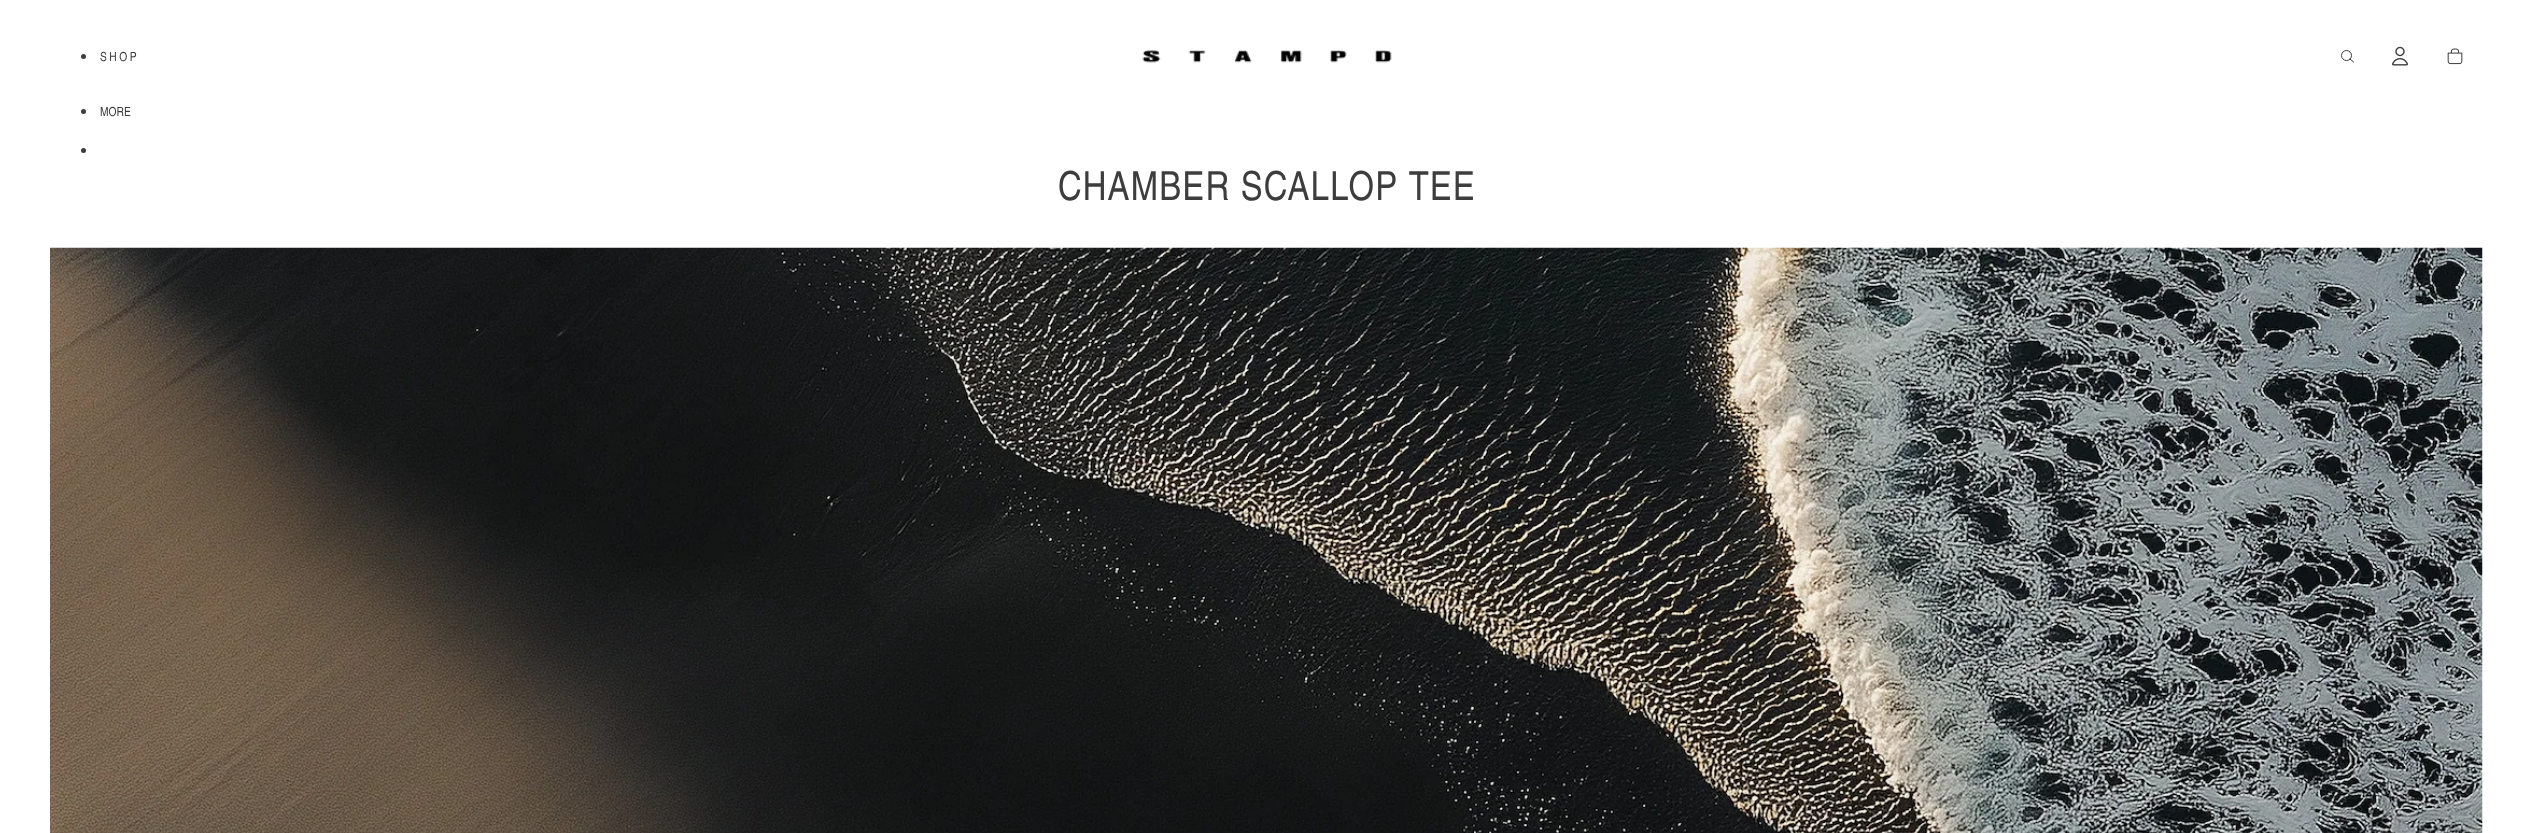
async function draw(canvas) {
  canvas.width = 2532;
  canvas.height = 833;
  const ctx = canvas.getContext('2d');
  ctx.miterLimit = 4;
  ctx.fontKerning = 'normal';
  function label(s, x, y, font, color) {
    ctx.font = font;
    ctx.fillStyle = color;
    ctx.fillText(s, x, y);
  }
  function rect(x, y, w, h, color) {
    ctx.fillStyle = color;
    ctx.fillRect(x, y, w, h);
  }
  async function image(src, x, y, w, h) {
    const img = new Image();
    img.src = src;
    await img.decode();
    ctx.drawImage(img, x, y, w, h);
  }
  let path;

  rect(0, 0, 2532, 833, '#fff');
  ctx.fillStyle = '#3d3d3d';
  ctx.beginPath();
  ctx.arc(83.5, 56.5, 2.5, 0, 2 * Math.PI);
  ctx.fill();
  ctx.letterSpacing = '2.5px';
  label('SHOP', 100, 61, '12.5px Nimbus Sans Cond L', '#3d3d3d');
  ctx.beginPath();
  ctx.arc(83.5, 111.5, 2.5, 0, 2 * Math.PI);
  ctx.fill();
  ctx.letterSpacing = '0px';
  label('MORE', 100, 116, '12.5px Nimbus Sans Cond L', '#3d3d3d');
  ctx.beginPath();
  ctx.arc(83.5, 150.5, 2.5, 0, 2 * Math.PI);
  ctx.fill();
  await image('assets/img1.png', 1142, 50, 250, 13);
  ctx.beginPath();
  ctx.arc(2346.5, 55.5, 5, 0, 2 * Math.PI);
  ctx.strokeStyle = '#3d3d3d';
  ctx.stroke();
  path = new Path2D('M2350 59L2353.5 62');
  ctx.strokeStyle = '#000000c2';
  ctx.lineCap = 'round';
  ctx.lineJoin = 'round';
  ctx.stroke(path);
  await image('assets/img2.png', 2392, 46, 16, 20);
  await image('assets/img3.png', 2447, 48, 16, 17);
  ctx.letterSpacing = '1.25px';
  label('CHAMBER SCALLOP TEE', 1058, 200, '40px Nimbus Sans Cond L', '#3d3d3d');
  await image('assets/img4.png', 50, 247, 2433, 586);
}

draw(document.querySelector('canvas'));
